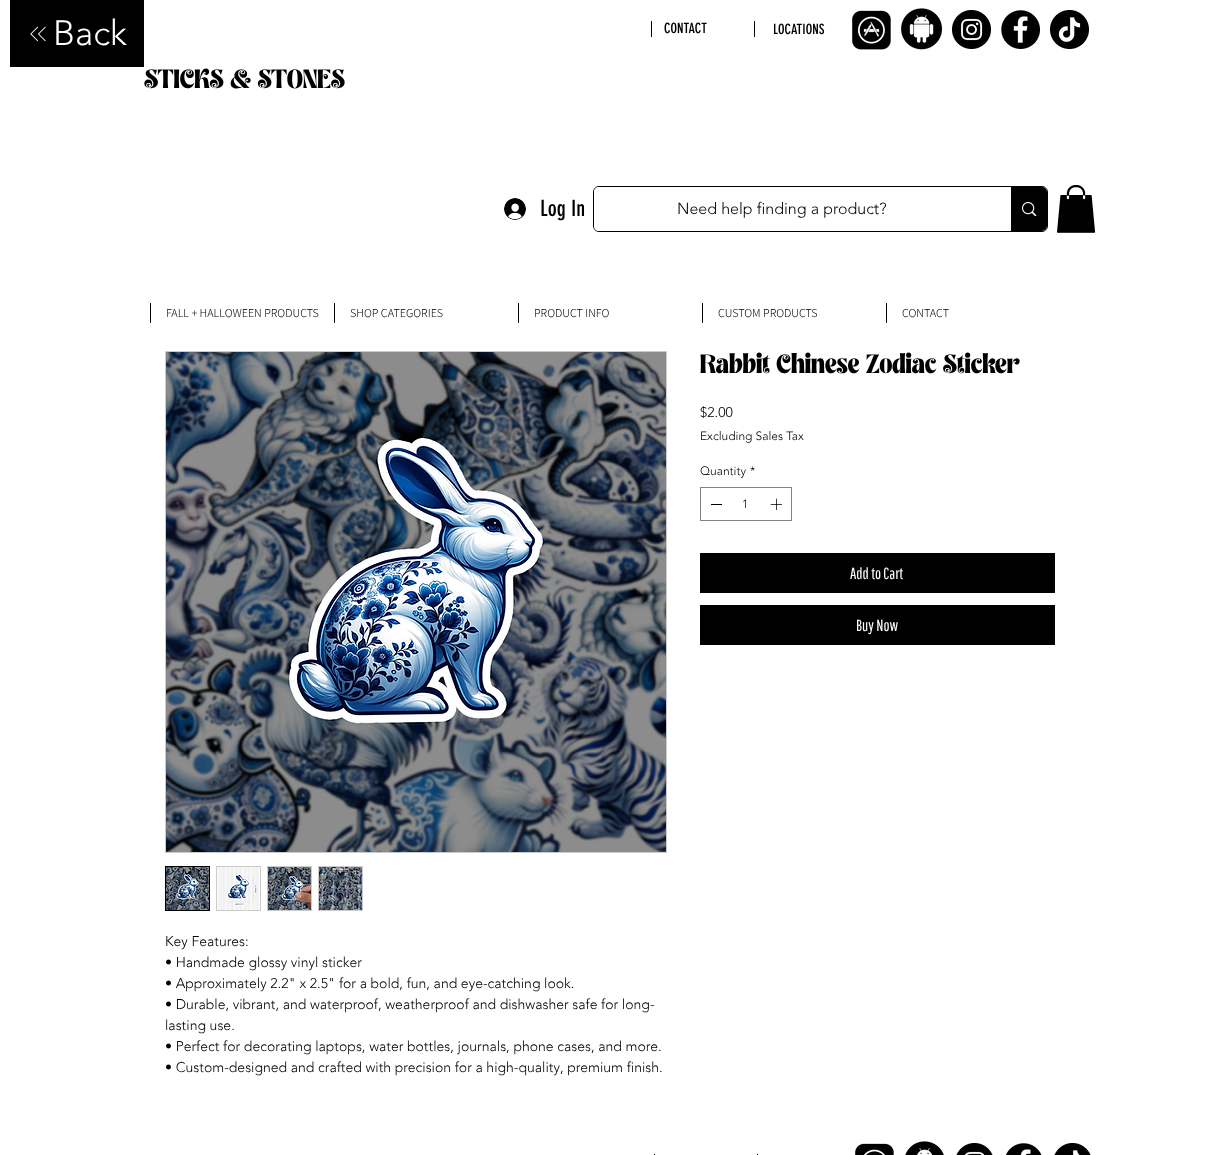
async function draw(canvas) {
  canvas.width = 1219;
  canvas.height = 1155;
  const ctx = canvas.getContext('2d');
  ctx.miterLimit = 4;
  ctx.fontKerning = 'normal';
  function label(s, x, y, font, color) {
    ctx.font = font;
    ctx.fillStyle = color;
    ctx.fillText(s, x, y);
  }
  function rect(x, y, w, h, color) {
    ctx.fillStyle = color;
    ctx.fillRect(x, y, w, h);
  }
  function roundedRect(x, y, w, h, r, color) {
    ctx.fillStyle = color;
    ctx.beginPath();
    ctx.roundRect(x, y, w, h, r);
    ctx.fill();
  }
  async function image(src, x, y, w, h) {
    const img = new Image();
    img.src = src;
    await img.decode();
    ctx.drawImage(img, x, y, w, h);
  }

  rect(0, 0, 1219, 1155, '#fff');
  rect(10, 0, 134, 67, '#000');
  await image('assets/img1.png', 30, 26, 16, 16);
  label('Back', 53, 45, '300 35px "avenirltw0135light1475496"', '#fff');
  rect(651, 21, 1, 16, '#000');
  label('CONTACT', 664, 33, '14px "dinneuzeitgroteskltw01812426"', '#000');
  rect(754, 21, 1, 16, '#000');
  label('LOCATIONS', 773, 34, '14px "dinneuzeitgroteskltw01812426"', '#000');
  await image('assets/img2.png', 852, 10, 39, 40);
  await image('assets/img3.png', 901, 8, 42, 42);
  await image('assets/img4.png', 952, 10, 39, 39);
  await image('assets/img5.png', 1001, 10, 39, 39);
  await image('assets/img6.png', 1050, 10, 39, 39);
  label('STICKS & STONES', 144, 88, '25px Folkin', '#000');
  await image('assets/img7.png', 504, 198, 22, 22);
  label('Log In', 540, 216, '22px "dinneuzeitgroteskltw01812426"', '#000');
  ctx.beginPath();
  ctx.roundRect(593.5, 186.5, 454, 45, 5.5);
  ctx.strokeStyle = '#000';
  ctx.stroke();
  roundedRect(594, 187, 453, 44, 5, '#fff');
  label('Need help finding a product?', 677, 214, '300 16px "avenirltw0135light1475496"', '#000');
  ctx.beginPath();
  ctx.roundRect(1011, 187, 36, 44, [0, 5, 5, 0]);
  ctx.fill();
  await image('assets/img8.png', 1022, 202, 15, 14);
  await image('assets/img9.png', 1057, 185, 39, 48);
  rect(150, 303, 1, 20, '#000');
  label('FALL + HALLOWEEN PRODUCTS', 166, 317, '300 12px Assistant', '#000');
  rect(334, 303, 1, 20, '#000');
  label('SHOP CATEGORIES', 350, 317, '300 12px Assistant', '#000');
  rect(518, 303, 1, 20, '#000');
  label('PRODUCT INFO', 534, 317, '300 12px Assistant', '#000');
  rect(702, 303, 1, 20, '#000');
  label('CUSTOM PRODUCTS', 718, 317, '300 12px Assistant', '#000');
  rect(886, 303, 1, 20, '#000');
  label('CONTACT', 902, 317, '300 12px Assistant', '#000');
  label('Rabbit Chinese Zodiac Sticker', 700, 373, '25px Folkin', '#000');
  label('$2.00', 700, 417, '300 14px "avenirltw0135light1475496"', '#000');
  label('Excluding Sales Tax', 700, 440, '300 12px "avenirltw0135light1475496"', '#000');
  label('Quantity', 700, 475, '300 12px "avenirltw0135light1475496"', '#000');
  label('*', 750, 475, '300 12px "avenirltw0135light1475496"', '#000');
  ctx.strokeStyle = '#828283';
  ctx.strokeRect(700.5, 487.5, 91, 33);
  rect(711, 504, 11, 1, '#000');
  label('1', 742, 508, '300 12px "avenirltw0135light1475496"', '#000');
  await image('assets/img10.png', 770, 498, 12, 12);
  rect(700, 553, 355, 40, '#000');
  label('Add to Cart', 850, 579, '16px Pathway Gothic One', '#fff');
  rect(700, 605, 355, 40, '#000');
  label('Buy Now', 856, 631, '16px Pathway Gothic One', '#fff');
  ctx.strokeStyle = '#cbcbcb';
  ctx.strokeRect(165.5, 351.5, 501, 501);
  await image('assets/img11.png', 166, 352, 500, 500);
  ctx.strokeStyle = '#000';
  ctx.strokeRect(165.5, 866.5, 44, 44);
  await image('assets/img12.png', 166, 867, 43, 43);
  ctx.strokeStyle = '#cbcbcb';
  ctx.strokeRect(216.5, 866.5, 44, 44);
  await image('assets/img13.png', 217, 867, 43, 43);
  ctx.strokeRect(267.5, 866.5, 44, 44);
  await image('assets/img14.png', 268, 867, 43, 43);
  ctx.strokeRect(318.5, 866.5, 44, 44);
  await image('assets/img15.png', 319, 867, 43, 43);
  label('Key Features:', 165, 946, '300 14px "avenirltw0135light1475496"', '#000');
  label('• Handmade glossy vinyl sticker', 165, 967, '300 14px "avenirltw0135light1475496"', '#000');
  label('• Approximately 2.2" x 2.5" for a bold, fun, and eye-catching look.', 165, 988, '300 14px "avenirltw0135light1475496"', '#000');
  label('• Durable, vibrant, and waterproof, weatherproof and dishwasher safe for long-', 165, 1009, '300 14px "avenirltw0135light1475496"', '#000');
  label('lasting use.', 165, 1030, '300 14px "avenirltw0135light1475496"', '#000');
  label('• Perfect for decorating laptops, water bottles, journals, phone cases, and more.', 165, 1051, '300 14px "avenirltw0135light1475496"', '#000');
  label('• Custom-designed and crafted with precision for a high-quality, premium finish.', 165, 1072, '300 14px "avenirltw0135light1475496"', '#000');
  rect(654, 1154, 1, 1, '#000');
  rect(757, 1154, 1, 1, '#000');
  await image('assets/img16.png', 855, 1143, 39, 12);
  await image('assets/img17.png', 905, 1141, 39, 14);
  await image('assets/img18.png', 956, 1143, 37, 12);
  await image('assets/img19.png', 1006, 1143, 36, 12);
  await image('assets/img20.png', 1054, 1143, 37, 12);
}

draw(document.querySelector('canvas'));
